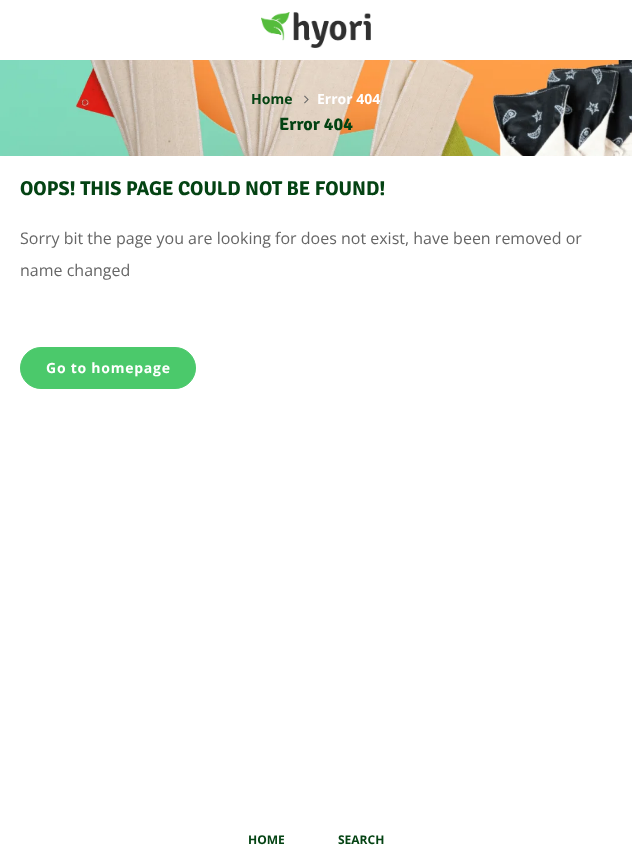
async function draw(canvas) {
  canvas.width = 632;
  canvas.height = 863;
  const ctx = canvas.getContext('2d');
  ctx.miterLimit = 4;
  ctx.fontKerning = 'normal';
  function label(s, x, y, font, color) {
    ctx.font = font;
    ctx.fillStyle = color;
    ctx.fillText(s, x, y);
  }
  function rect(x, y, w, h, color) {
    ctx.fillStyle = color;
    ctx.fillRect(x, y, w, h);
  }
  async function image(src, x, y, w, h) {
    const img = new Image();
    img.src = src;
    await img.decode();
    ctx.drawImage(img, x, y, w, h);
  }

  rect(0, 0, 632, 863, '#fff');
  await image('assets/img1.png', 261, 12, 110, 36);
  await image('assets/img2.png', 0, 60, 632, 96);
  label('Home', 251, 104, 'bold 14px Open Sans', '#044313');
  await image('assets/img3.png', 304, 95, 5, 9);
  label('Error 404', 317, 104, 'bold 14px Open Sans', '#fff');
  label('Error 404', 279, 130, 'bold 18px Signika', '#044313');
  label('OOPS! THIS PAGE COULD NOT BE FOUND!', 20, 195, 'bold 20px Signika', '#044313');
  label('Sorry bit the page you are looking for does not exist, have been removed or', 20, 244, '16px Open Sans', '#666');
  label('name changed', 20, 276, '16px Open Sans', '#666');
  ctx.fillStyle = '#4bc96b';
  ctx.beginPath();
  ctx.roundRect(20.5, 347.5, 175, 41, 20.5);
  ctx.fill();
  ctx.strokeStyle = '#4bc96b';
  ctx.stroke();
  ctx.letterSpacing = '0.75px';
  label('Go to homepage', 46, 373, 'bold 14px Open Sans', '#fff');
  ctx.letterSpacing = '0px';
  label('HOME', 248, 844, 'bold 12px Open Sans', '#044313');
  label('SEARCH', 338, 844, 'bold 12px Open Sans', '#044313');
}

draw(document.querySelector('canvas'));
